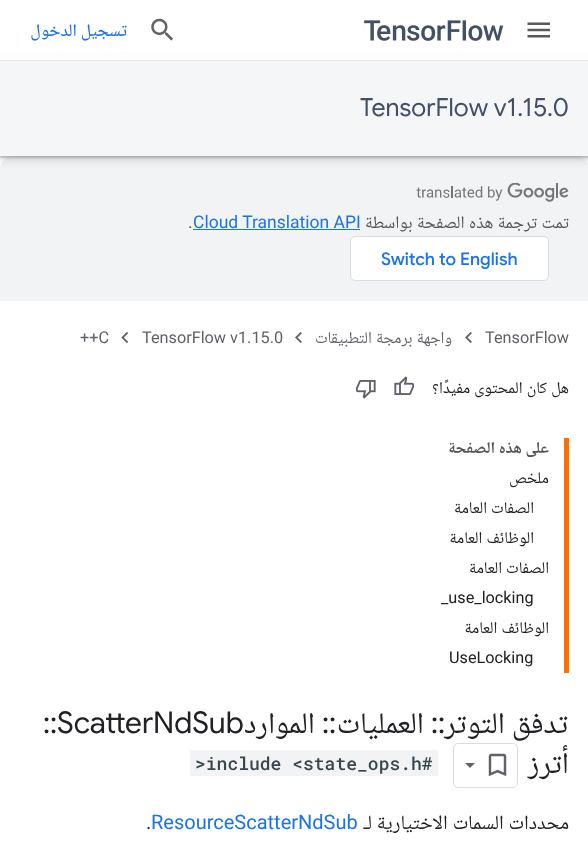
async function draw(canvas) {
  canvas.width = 588;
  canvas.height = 844;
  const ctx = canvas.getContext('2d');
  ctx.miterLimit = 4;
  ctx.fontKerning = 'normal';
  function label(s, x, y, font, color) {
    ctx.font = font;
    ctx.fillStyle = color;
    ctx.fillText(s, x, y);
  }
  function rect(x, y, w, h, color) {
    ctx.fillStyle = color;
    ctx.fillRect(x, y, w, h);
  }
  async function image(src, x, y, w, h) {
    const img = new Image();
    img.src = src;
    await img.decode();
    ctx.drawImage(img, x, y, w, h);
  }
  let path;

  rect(0, 0, 588, 844, '#fff');
  ctx.fillStyle = '#f1f3f4';
  path = new Path2D('M13 156H576C583 156 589 162 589 169V301H0V169C0 162 6 156 13 156Z');
  ctx.fill(path);
  ctx.fillStyle = '#3c404326';
  ctx.filter = 'blur(4px)';
  ctx.beginPath();
  ctx.rect(-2, 61, 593, 100);
  ctx.fill();
  ctx.filter = 'none';
  ctx.fillStyle = '#3c40434d';
  ctx.filter = 'blur(1px)';
  ctx.beginPath();
  ctx.rect(0, 63, 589, 95);
  ctx.fill();
  ctx.filter = 'none';
  rect(0, 56, 588, 4, '#fff');
  rect(0, 60, 588, 1, '#e6e6e6');
  await image('assets/img1.png', 527, 22, 23, 16);
  await image('assets/img2.png', 364, 20, 140, 21);
  await image('assets/img3.png', 151, 18, 22, 23);
  ctx.direction = 'rtl';
  label('تسجيل الدخول', 127, 36, '500 17.5px Noto Naskh Arabic', '#1a73e8');
  rect(0, 61, 588, 95, '#f5f6f7');
  ctx.direction = 'ltr';
  label('TensorFlow v1.15.0', 360, 116, '25px Google Sans', '#425066');
  await image('assets/img4.png', 416, 183, 153, 19);
  ctx.wordSpacing = '0.5px';
  ctx.direction = 'rtl';
  label('تمت ترجمة هذه الصفحة بواسطة', 569, 228, '17.5px Noto Naskh Arabic', '#545555');
  ctx.wordSpacing = '0px';
  ctx.direction = 'ltr';
  label('Cloud Translation API', 193, 228, '17.5px Roboto', '#1a73e8');
  rect(193, 229, 167, 1, '#1a73e8');
  label('.', 188, 228, '17.5px Roboto', '#545555');
  ctx.fillStyle = '#fff';
  ctx.beginPath();
  ctx.roundRect(350.5, 236.5, 198, 44, 4.5);
  ctx.fill();
  ctx.strokeStyle = '#dadce0';
  ctx.stroke();
  label('Switch to English', 381, 265, '500 17.5px Google Sans', '#1a73e8');
  label('TensorFlow', 485, 343, '16.25px Roboto', '#5f6368');
  await image('assets/img5.png', 465, 332, 7, 11);
  ctx.wordSpacing = '0.5px';
  ctx.direction = 'rtl';
  label('واجهة برمجة التطبيقات', 452, 343, '16.25px Noto Naskh Arabic', '#5f6368');
  await image('assets/img5.png', 295, 332, 7, 11);
  ctx.wordSpacing = '0px';
  ctx.direction = 'ltr';
  label('TensorFlow v1.15.0', 142, 343, '16.25px Roboto', '#5f6368');
  await image('assets/img6.png', 121, 332, 8, 11);
  label('++C', 80, 343, '16.25px Roboto', '#5f6368');
  ctx.wordSpacing = '0.5px';
  ctx.direction = 'rtl';
  label('هل كان المحتوى مفيدًا؟', 569, 393, '16.25px Noto Naskh Arabic', '#202124');
  await image('assets/img7.png', 394, 376, 21, 19);
  await image('assets/img8.png', 355, 380, 21, 19);
  rect(564, 438, 5, 235, '#ff6f00');
  ctx.wordSpacing = '0px';
  label('على هذه الصفحة', 549, 453, 'bold 16.25px Noto Naskh Arabic', '#545555');
  label('ملخص', 549, 483, '16.25px Noto Naskh Arabic', '#202124');
  ctx.wordSpacing = '0.5px';
  label('الصفات العامة', 534, 513, '16.25px Noto Naskh Arabic', '#202124');
  label('الوظائف العامة', 534, 543, '16.25px Noto Naskh Arabic', '#202124');
  label('الصفات العامة', 549, 573, '16.25px Noto Naskh Arabic', '#202124');
  ctx.wordSpacing = '0px';
  ctx.direction = 'ltr';
  label('_use_locking', 441, 603, '16.25px Roboto', '#202124');
  ctx.wordSpacing = '0.5px';
  ctx.direction = 'rtl';
  label('الوظائف العامة', 549, 633, '16.25px Noto Naskh Arabic', '#202124');
  ctx.wordSpacing = '0px';
  ctx.direction = 'ltr';
  label('UseLocking', 449, 663, '16.25px Roboto', '#202124');
  ctx.direction = 'rtl';
  label('تدفق التوتر', 568, 733, '30px Noto Naskh Arabic', '#202124');
  ctx.direction = 'ltr';
  label('::', 431, 733, '30px Google Sans', '#202124');
  ctx.direction = 'rtl';
  label('العمليات', 424, 733, '30px Noto Naskh Arabic', '#202124');
  ctx.direction = 'ltr';
  label('::', 322, 733, '30px Google Sans', '#202124');
  ctx.direction = 'rtl';
  label('الموارد', 315, 733, '30px Noto Naskh Arabic', '#202124');
  ctx.direction = 'ltr';
  label('ScatterNdSub', 57, 733, '30px Google Sans', '#202124');
  label('::', 43, 733, '30px Google Sans', '#202124');
  ctx.direction = 'rtl';
  label('أترز', 569, 773, '30px Noto Naskh Arabic', '#202124');
  ctx.beginPath();
  ctx.roundRect(453.5, 743.5, 64, 44, 4.5);
  ctx.stroke();
  await image('assets/img9.png', 488, 753, 19, 24);
  ctx.fillStyle = '#5f6368';
  path = new Path2D('M465 763H475L470 768Z');
  ctx.fill(path);
  rect(190, 750, 248, 26, '#f1f3f4');
  ctx.direction = 'ltr';
  label('>include <state_ops.h#', 195, 770, '500 18px Roboto Mono', '#37474f');
  ctx.wordSpacing = '0.5px';
  ctx.direction = 'rtl';
  label('محددات السمات الاختيارية لـ', 569, 829, '20px Noto Naskh Arabic', '#202124');
  ctx.wordSpacing = '0px';
  ctx.direction = 'ltr';
  label('ResourceScatterNdSub', 151, 829, '20px Roboto', '#1a73e8');
  label('.', 146, 829, '20px Roboto', '#202124');
}

draw(document.querySelector('canvas'));
